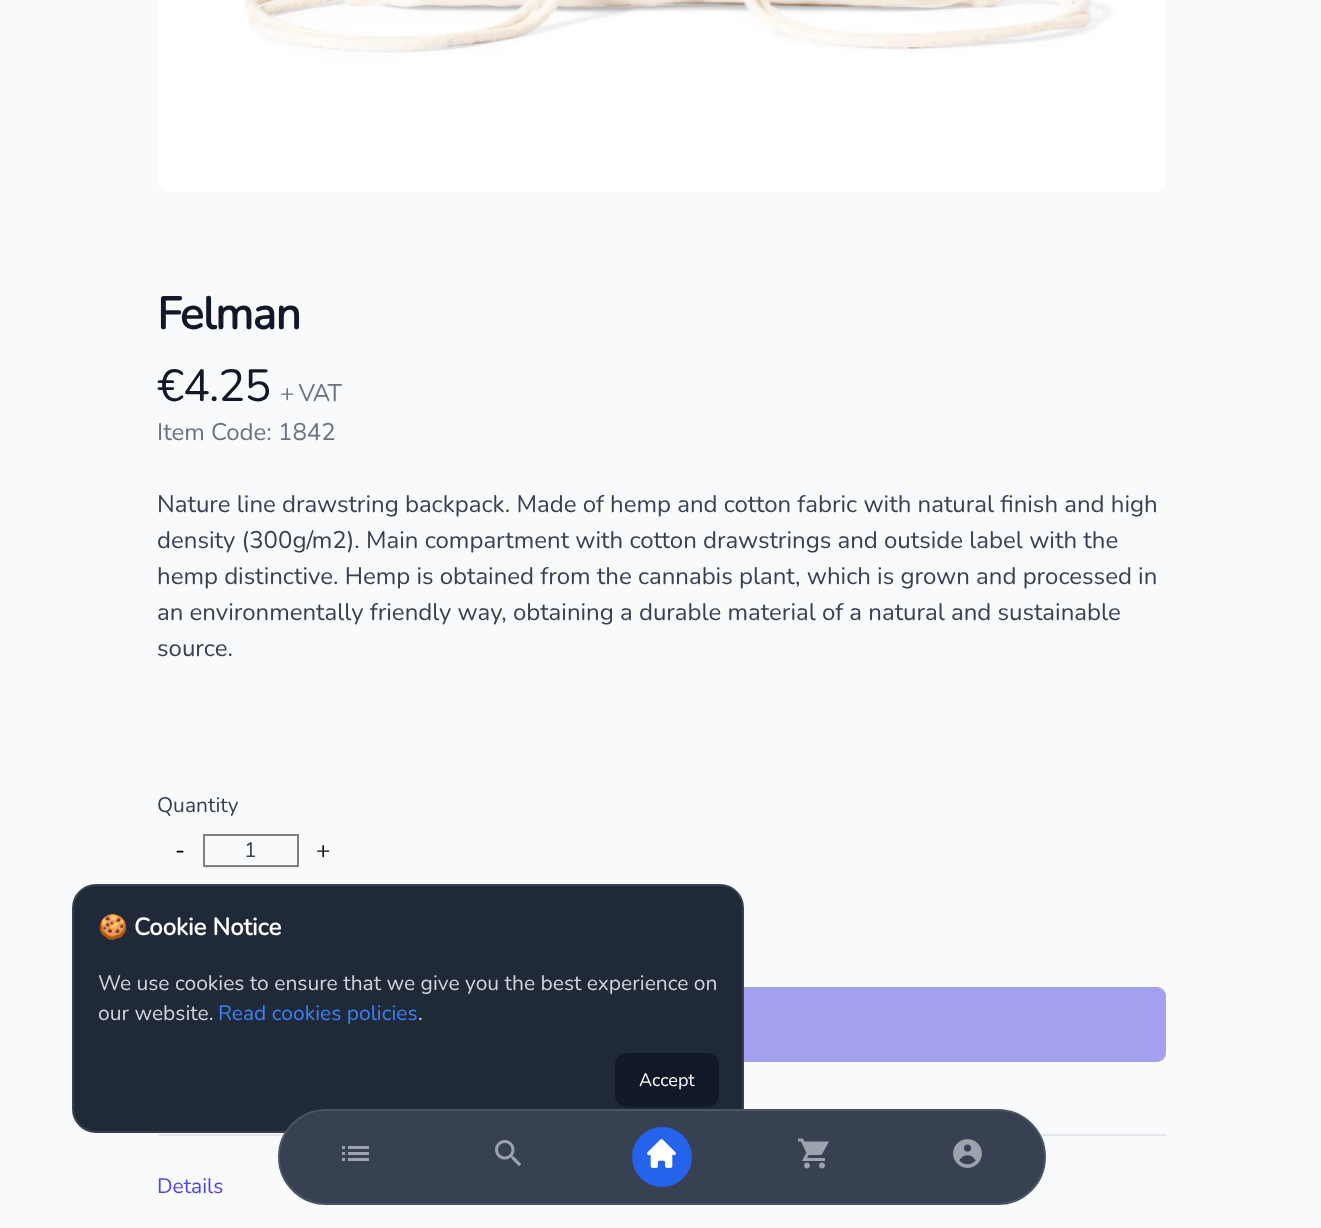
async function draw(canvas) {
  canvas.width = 1321;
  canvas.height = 1228;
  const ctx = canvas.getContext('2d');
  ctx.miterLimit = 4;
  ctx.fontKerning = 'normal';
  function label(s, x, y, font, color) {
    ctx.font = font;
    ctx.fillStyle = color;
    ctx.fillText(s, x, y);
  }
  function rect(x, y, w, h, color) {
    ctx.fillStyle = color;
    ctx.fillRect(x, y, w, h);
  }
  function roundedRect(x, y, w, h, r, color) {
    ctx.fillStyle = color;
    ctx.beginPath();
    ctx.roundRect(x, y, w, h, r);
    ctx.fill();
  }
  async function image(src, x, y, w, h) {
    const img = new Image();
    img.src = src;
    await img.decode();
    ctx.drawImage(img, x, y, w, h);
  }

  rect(0, 0, 1321, 1228, '#f9fafb');
  await image('assets/img1.png', 158, 0, 1007, 192);
  ctx.letterSpacing = '-1px';
  label('Felman', 157, 329, 'bold 45px Nunito', '#111827');
  label('€4.25', 157, 401, '200 45px Nunito', '#111827');
  label('+ VAT', 280, 401, '200 24px Nunito', '#6b7280');
  ctx.letterSpacing = '0px';
  label('Item Code: 1842', 157, 440, '200 24px Nunito', '#6b7280');
  label('Nature line drawstring backpack. Made of hemp and cotton fabric with natural finish and high', 157, 512, '200 24px Nunito', '#374151');
  label('density (300g/m2). Main compartment with cotton drawstrings and outside label with the', 157, 548, '200 24px Nunito', '#374151');
  label('hemp distinctive. Hemp is obtained from the cannabis plant, which is grown and processed in', 157, 584, '200 24px Nunito', '#374151');
  label('an environmentally friendly way, obtaining a durable material of a natural and sustainable', 157, 620, '200 24px Nunito', '#374151');
  label('source.', 157, 656, '200 24px Nunito', '#374151');
  label('Quantity', 157, 812, '200 21px Nunito', '#374151');
  label('-', 175, 858, '200 24px Nunito', '#000');
  ctx.save();
  ctx.beginPath();
  ctx.rect(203, 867, 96, 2);
  ctx.clip();
  ctx.fillStyle = '#0000000d';
  ctx.filter = 'blur(1.5px)';
  ctx.beginPath();
  ctx.rect(203, 836, 96, 33);
  ctx.fill();
  ctx.filter = 'none';
  ctx.restore();
  ctx.strokeStyle = '#808080';
  ctx.lineWidth = 2;
  ctx.strokeRect(204, 835, 94, 31);
  label('1', 244, 857, '200 21px Nunito', '#374151');
  label('+', 316, 858, '200 24px Nunito', '#000');
  roundedRect(158, 987, 1008, 75, 9, '#a4a0f0');
  rect(158, 1134, 1008, 2, '#e5e7eb');
  label('Details', 157, 1193, '200 21px Nunito', '#4f46e5');
  ctx.fillStyle = '#1f2937';
  ctx.beginPath();
  ctx.roundRect(73, 885, 670, 247, 23);
  ctx.fill();
  ctx.strokeStyle = '#374151';
  ctx.stroke();
  label('🍪', 98, 935, '24px Noto Color Emoji', '#fff');
  label('Cookie Notice', 134, 935, 'bold 24px Nunito', '#fff');
  label('We use cookies to ensure that we give you the best experience on', 98, 990, '200 21px Nunito', '#d1d5db');
  label('our website.', 98, 1020, '200 21px Nunito', '#d1d5db');
  label('Read cookies policies', 218, 1020, '200 21px Nunito', '#3b82f6');
  label('.', 418, 1020, '200 21px Nunito', '#d1d5db');
  roundedRect(615, 1053, 104, 54, 12, '#111827');
  label('Accept', 639, 1086, '200 18px Nunito', '#fff');
  ctx.fillStyle = '#374151';
  ctx.beginPath();
  ctx.roundRect(279, 1110, 766, 94, 47);
  ctx.fill();
  ctx.strokeStyle = '#4b5563';
  ctx.stroke();
  await image('assets/img2.png', 342, 1146, 27, 15);
  await image('assets/img3.png', 495, 1140, 26, 26);
  ctx.fillStyle = '#2563eb';
  ctx.beginPath();
  ctx.arc(662, 1157, 30, 0, 2 * Math.PI);
  ctx.fill();
  await image('assets/img4.png', 647, 1139, 29, 29);
  await image('assets/img5.png', 798, 1138, 31, 31);
  await image('assets/img6.png', 953, 1139, 29, 29);
}

draw(document.querySelector('canvas'));
